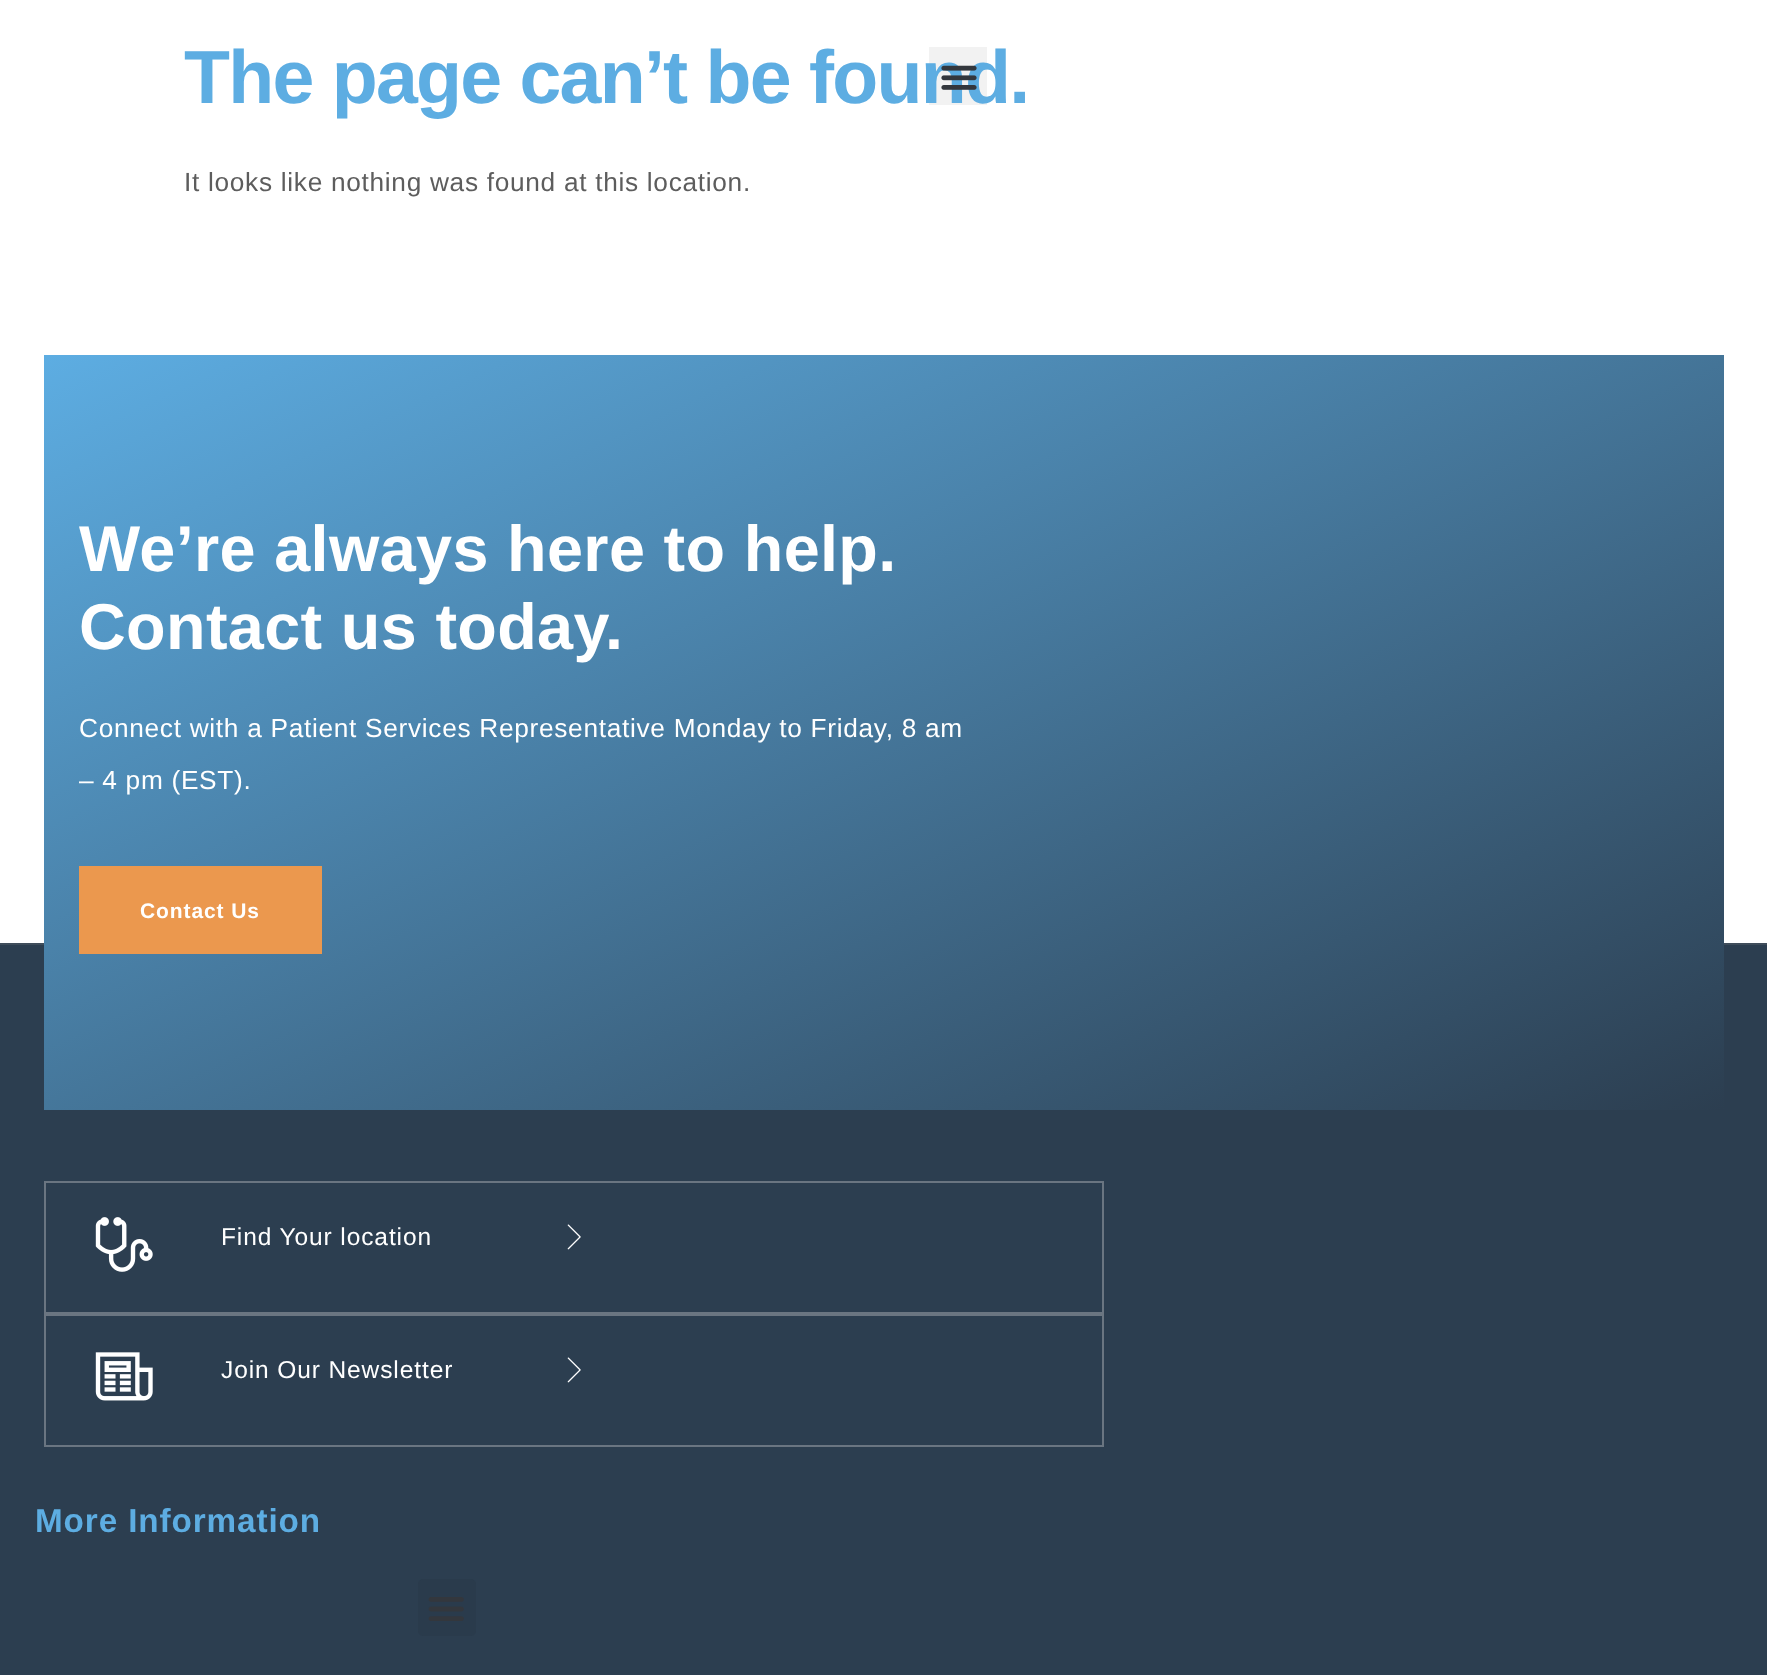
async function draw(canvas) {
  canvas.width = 1767;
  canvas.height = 1675;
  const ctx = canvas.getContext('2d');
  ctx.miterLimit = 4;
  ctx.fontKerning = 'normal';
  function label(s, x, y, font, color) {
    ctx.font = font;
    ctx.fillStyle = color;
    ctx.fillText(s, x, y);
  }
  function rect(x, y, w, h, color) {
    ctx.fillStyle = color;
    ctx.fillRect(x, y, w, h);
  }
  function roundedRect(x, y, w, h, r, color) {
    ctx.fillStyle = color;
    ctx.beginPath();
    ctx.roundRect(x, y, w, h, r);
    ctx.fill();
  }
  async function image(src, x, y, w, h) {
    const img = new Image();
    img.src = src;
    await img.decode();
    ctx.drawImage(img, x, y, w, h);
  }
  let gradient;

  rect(0, 0, 1767, 1675, '#fff');
  rect(929, 47, 58, 58, '#0000000d');
  ctx.letterSpacing = '-1.75px';
  label('The page can’t be found.', 184, 103, 'bold 75.25px Liberation Sans', '#5dade2');
  await image('assets/img1.png', 941, 65, 36, 25);
  ctx.letterSpacing = '0.7px';
  label('It looks like nothing was found at this location.', 184, 191, '26.25px Liberation Sans', '#5d5d5d');
  rect(0, 945, 1767, 730, '#2c3e50');
  rect(0, 943, 1767, 2, '#3f4d5b');
  gradient = ctx.createLinearGradient(589, 101, 1178, 1364);
  gradient.addColorStop(0, '#5dade2');
  gradient.addColorStop(1, '#2c3e50');
  ctx.fillStyle = gradient;
  ctx.fillRect(44, 355, 1680, 755);
  ctx.letterSpacing = '0.35px';
  label('We’re always here to help.', 79, 571, 'bold 64.75px Liberation Sans', '#fff');
  label('Contact us today.', 79, 649, 'bold 64.75px Liberation Sans', '#fff');
  ctx.letterSpacing = '0.7px';
  label('Connect with a Patient Services Representative Monday to Friday, 8 am', 79, 737, '26.25px Liberation Sans', '#fff');
  label('– 4 pm (EST).', 79, 789, '26.25px Liberation Sans', '#fff');
  rect(79, 866, 243, 88, '#eb984e');
  ctx.letterSpacing = '0.9px';
  label('Contact Us', 140, 918, 'bold 21px Liberation Sans', '#fff');
  ctx.strokeStyle = '#6a7581';
  ctx.lineWidth = 2;
  ctx.strokeRect(45, 1182, 1058, 131);
  await image('assets/img2.png', 95, 1217, 58, 55);
  label('Find Your location', 221, 1245, '24.5px Liberation Sans', '#fff');
  await image('assets/img3.png', 567, 1224, 14, 26);
  ctx.strokeRect(45, 1315, 1058, 131);
  await image('assets/img4.png', 95, 1352, 58, 49);
  label('Join Our Newsletter', 221, 1378, '24.5px Liberation Sans', '#fff');
  await image('assets/img3.png', 567, 1357, 14, 26);
  label('More Information', 35, 1532, 'bold 33.25px Liberation Sans', '#5dade2');
  roundedRect(418, 1579, 58, 57, 5, '#2a3b4c');
  await image('assets/img5.png', 428, 1597, 36, 24);
}

draw(document.querySelector('canvas'));
